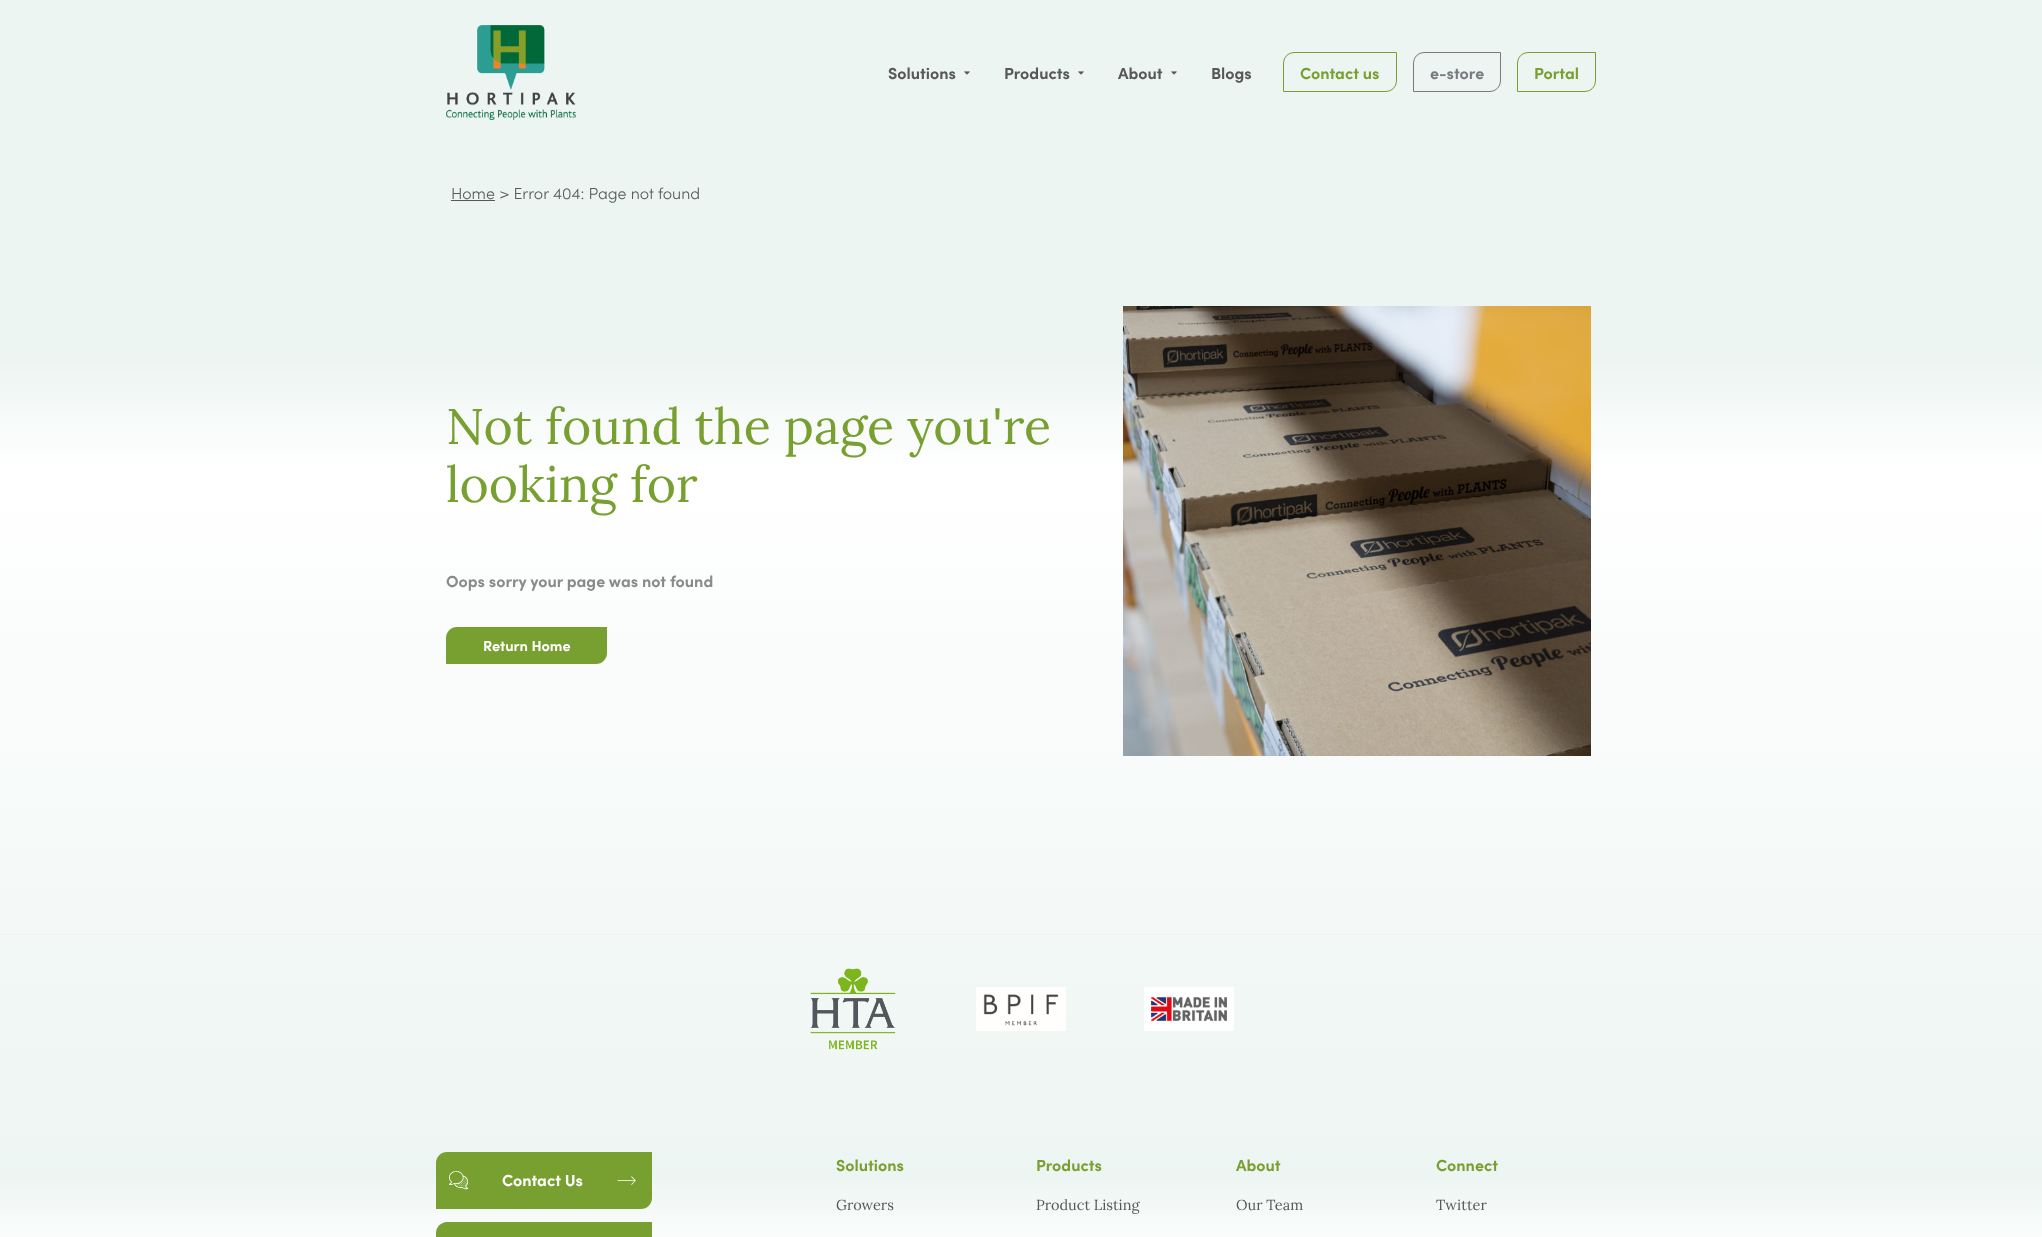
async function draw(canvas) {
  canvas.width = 2042;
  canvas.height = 1237;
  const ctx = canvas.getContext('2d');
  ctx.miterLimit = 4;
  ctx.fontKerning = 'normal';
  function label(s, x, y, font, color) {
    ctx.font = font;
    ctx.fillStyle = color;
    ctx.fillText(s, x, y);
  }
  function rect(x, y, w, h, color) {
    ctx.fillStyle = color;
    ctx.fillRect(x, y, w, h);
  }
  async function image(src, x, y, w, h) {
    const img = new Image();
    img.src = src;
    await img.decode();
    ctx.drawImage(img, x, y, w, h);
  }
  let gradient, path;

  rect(0, 0, 2042, 1237, '#fff');
  gradient = ctx.createLinearGradient(1021, 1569, 1021, 0);
  gradient.addColorStop(0.2, '#fff');
  gradient.addColorStop(0.25, '#edf5f2');
  gradient.addColorStop(0.7, '#fff');
  gradient.addColorStop(0.77, '#edf5f2');
  ctx.fillStyle = gradient;
  ctx.fillRect(0, 0, 2042, 1237);
  await image('assets/img1.png', 446, 25, 130, 95);
  label('Solutions', 888, 79, 'bold 16px Sofia', '#58585a');
  await image('assets/img2.png', 964, 71, 6, 4);
  label('Products', 1004, 79, 'bold 16px Sofia', '#58585a');
  await image('assets/img2.png', 1078, 71, 6, 4);
  label('About', 1118, 79, 'bold 16px Sofia', '#58585a');
  await image('assets/img2.png', 1171, 71, 6, 4);
  label('Blogs', 1211, 79, 'bold 16px Sofia', '#58585a');
  ctx.beginPath();
  ctx.roundRect(1283.5, 52.5, 113, 39, [10.5, 0, 10.5, 0]);
  ctx.strokeStyle = '#78a031';
  ctx.stroke();
  label('Contact us', 1300, 79, 'bold 16px Sofia', '#78a031');
  ctx.beginPath();
  ctx.roundRect(1413.5, 52.5, 87, 39, [10.5, 0, 10.5, 0]);
  ctx.strokeStyle = '#7a797f';
  ctx.stroke();
  label('e-store', 1430, 79, 'bold 16px Sofia', '#7a797f');
  ctx.beginPath();
  ctx.roundRect(1517.5, 52.5, 78, 39, [10.5, 0, 10.5, 0]);
  ctx.strokeStyle = '#78a031';
  ctx.stroke();
  label('Portal', 1534, 79, 'bold 16px Sofia', '#78a031');
  rect(451, 200, 44, 1, '#58585a');
  label('Home > Error 404: Page not found', 451, 199, '300 16px Sofia', '#58585a');
  label('Not found the page you\'re', 446, 444, '50px Lora', '#78a031');
  label('looking for', 446, 502, '50px Lora', '#78a031');
  label('Oops sorry your page was not found', 446, 587, 'bold 16px Sofia', '#8a8a8a');
  ctx.fillStyle = '#78a031';
  ctx.beginPath();
  ctx.roundRect(446, 627, 161, 37, [11, 0, 11, 0]);
  ctx.fill();
  label('Return Home', 483, 651, 'bold 14.5px Sofia', '#fff');
  await image('assets/img3.png', 1123, 306, 468, 450);
  rect(0, 934, 2042, 1, '#edf5f2');
  await image('assets/img4.png', 810, 968, 86, 82);
  await image('assets/img5.png', 976, 987, 90, 44);
  await image('assets/img6.png', 1144, 987, 90, 44);
  ctx.fillStyle = '#78a031';
  ctx.beginPath();
  ctx.roundRect(436, 1152, 216, 57, [11, 0, 11, 0]);
  ctx.fill();
  await image('assets/img7.png', 449, 1171, 19, 19);
  label('Contact Us', 502, 1186, 'bold 16px Sofia', '#fff');
  await image('assets/img8.png', 617, 1176, 19, 9);
  ctx.fillStyle = '#78a031';
  path = new Path2D('M447 1222H652V1237C652 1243 647 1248 641 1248H436V1233C436 1227 441 1222 447 1222Z');
  ctx.fill(path);
  label('Solutions', 836, 1171, 'bold 16px Sofia', '#78a031');
  label('Growers', 836, 1210, '14.5px Lora', '#58585a');
  label('Products', 1036, 1171, 'bold 16px Sofia', '#78a031');
  label('Product Listing', 1036, 1210, '14.5px Lora', '#58585a');
  label('About', 1236, 1171, 'bold 16px Sofia', '#78a031');
  label('Our Team', 1236, 1210, '14.5px Lora', '#58585a');
  label('Connect', 1436, 1171, 'bold 16px Sofia', '#78a031');
  label('Twitter', 1436, 1210, '14.5px Lora', '#58585a');
}

draw(document.querySelector('canvas'));
